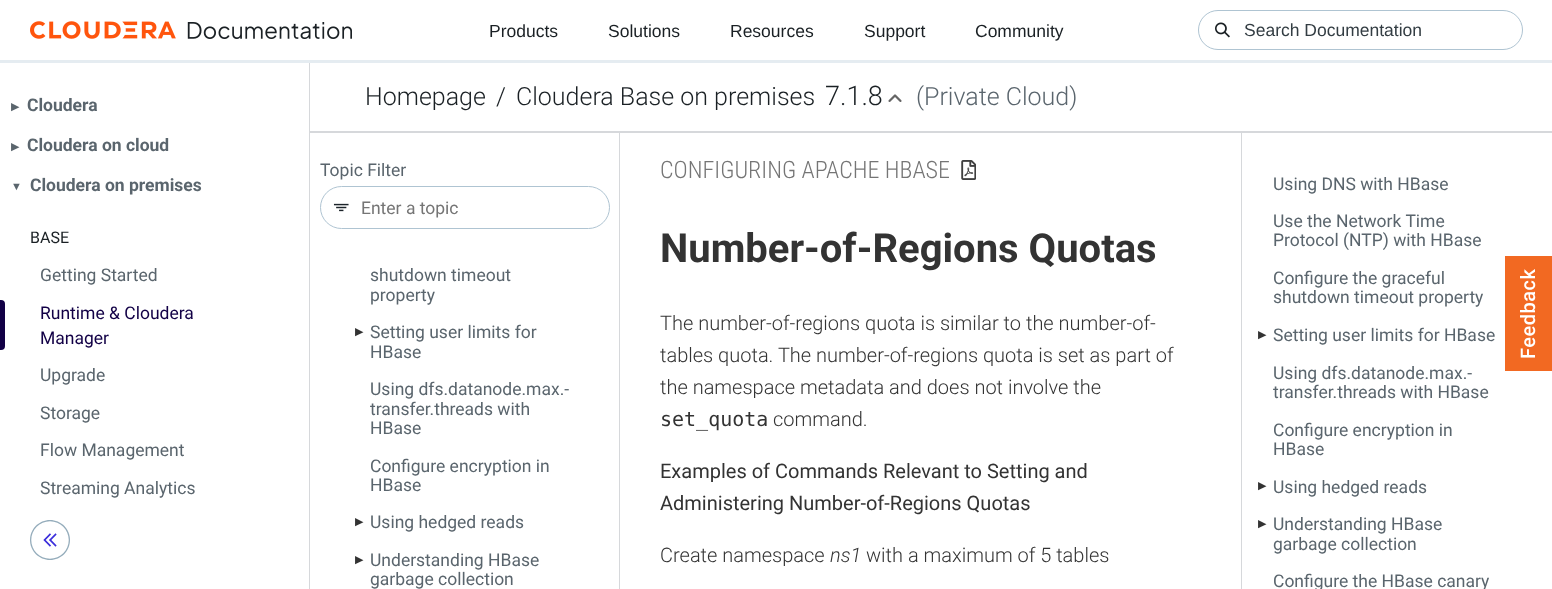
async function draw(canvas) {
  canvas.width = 1552;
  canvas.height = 589;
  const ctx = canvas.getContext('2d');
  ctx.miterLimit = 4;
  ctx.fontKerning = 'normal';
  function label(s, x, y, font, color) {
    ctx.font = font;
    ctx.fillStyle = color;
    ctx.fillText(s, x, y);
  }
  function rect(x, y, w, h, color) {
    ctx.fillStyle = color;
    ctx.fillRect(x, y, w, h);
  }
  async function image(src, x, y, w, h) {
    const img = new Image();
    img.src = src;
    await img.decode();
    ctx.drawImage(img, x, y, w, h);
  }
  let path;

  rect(0, 0, 1552, 589, '#fff');
  rect(0, 60, 1552, 3, '#e5ecf1');
  await image('assets/img1.png', 30, 21, 322, 18);
  label('Products', 489, 37, '17.5px Liberation Sans', '#1a2024');
  label('Solutions', 608, 37, '17.5px Liberation Sans', '#1a2024');
  label('Resources', 730, 37, '17.5px Liberation Sans', '#1a2024');
  label('Support', 864, 37, '17.5px Liberation Sans', '#1a2024');
  label('Community', 975, 37, '17.5px Liberation Sans', '#1a2024');
  ctx.beginPath();
  ctx.roundRect(1198.5, 10.5, 324, 39, 19.5);
  ctx.strokeStyle = '#afc4d2';
  ctx.stroke();
  await image('assets/img2.png', 1215, 22, 15, 16);
  label('Search Documentation', 1244, 36, '17.5px Liberation Sans', '#333d43');
  rect(309, 63, 1, 526, '#d6d8db');
  label('▶︎', 11, 110, '11px DejaVu Sans', '#5a656d');
  label('Cloudera', 27, 111, 'bold 17.5px Roboto', '#5a656d');
  label('▶︎', 11, 150, '11px DejaVu Sans', '#5a656d');
  label('Cloudera on cloud', 27, 151, 'bold 17.5px Roboto', '#5a656d');
  label('▼', 11, 190, '11px Liberation Sans', '#5a656d');
  label('Cloudera on premises', 30, 191, 'bold 17.5px Roboto', '#5a656d');
  label('BASE', 30, 243, '16px Roboto', '#1a2024');
  label('Getting Started', 40, 281, '17.5px Roboto', '#5a656d');
  ctx.fillStyle = '#120046';
  ctx.beginPath();
  ctx.roundRect(0, 300, 5, 50, [0, 4, 4, 0]);
  ctx.fill();
  label('Runtime & Cloudera', 40, 319, '17.5px Roboto', '#120046');
  label('Manager', 40, 344, '17.5px Roboto', '#120046');
  label('Upgrade', 40, 381, '17.5px Roboto', '#5a656d');
  label('Storage', 40, 419, '17.5px Roboto', '#5a656d');
  label('Flow Management', 40, 456, '17.5px Roboto', '#5a656d');
  label('Streaming Analytics', 40, 494, '17.5px Roboto', '#5a656d');
  await image('assets/img3.png', 30, 520, 40, 40);
  ctx.save();
  ctx.beginPath();
  ctx.rect(310, 131, 310, 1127);
  ctx.clip();
  ctx.fillStyle = '#d6d8db';
  path = new Path2D('M186 8H744V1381H186ZM309 132H619V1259H309Z');
  ctx.fill(path, 'evenodd');
  ctx.restore();
  rect(1241, 131, 1, 458, '#d6d8db');
  path = new Path2D('M310 131V133H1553V64H1552V131Z');
  ctx.fill(path);
  label('Homepage', 365, 105, '300 25px Roboto', '#1a2024');
  label('/', 496, 105, '300 25px Roboto', '#1a2024');
  label('Cloudera Base on premises', 516, 105, '300 25px Roboto', '#1a2024');
  label('7.1.8', 825, 105, '300 27px Roboto', '#1a2024');
  await image('assets/img4.png', 888, 94, 14, 8);
  label('(Private Cloud)', 916, 105, '300 25px Roboto', '#5a656d');
  label('Topic Filter', 320, 176, '17.5px Roboto', '#5a656d');
  ctx.beginPath();
  ctx.roundRect(320.5, 186.5, 289, 42, 21);
  ctx.stroke();
  await image('assets/img5.png', 333, 203, 16, 9);
  label('Enter a topic', 361, 214, '17.5px Roboto', '#757575');
  label('shutdown timeout', 370, 281, '17.5px Roboto', '#5a656d');
  label('property', 370, 301, '17.5px Roboto', '#5a656d');
  label('▶︎', 355, 335, '11px DejaVu Sans', '#333');
  label('Setting user limits for', 370, 338, '17.5px Roboto', '#5a656d');
  label('HBase', 370, 358, '17.5px Roboto', '#5a656d');
  label('Using dfs.datanode.max.-', 370, 395, '17.5px Roboto', '#5a656d');
  label('transfer.threads with', 370, 415, '17.5px Roboto', '#5a656d');
  label('HBase', 370, 434, '17.5px Roboto', '#5a656d');
  label('Configure encryption in', 370, 472, '17.5px Roboto', '#5a656d');
  label('HBase', 370, 491, '17.5px Roboto', '#5a656d');
  label('▶︎', 355, 525, '11px DejaVu Sans', '#333');
  label('Using hedged reads', 370, 528, '17.5px Roboto', '#5a656d');
  label('▶︎', 355, 563, '11px DejaVu Sans', '#333');
  label('Understanding HBase', 370, 566, '17.5px Roboto', '#5a656d');
  label('garbage collection', 370, 585, '17.5px Roboto', '#5a656d');
  label('CONFIGURING APACHE HBASE', 660, 178, '300 24px Roboto Condensed', '#757575');
  await image('assets/img6.png', 961, 160, 15, 20);
  label('Number-of-Regions Quotas', 660, 262, 'bold 40px Roboto', '#333');
  label('The number-of-regions quota is similar to the number-of-', 660, 330, '300 20px Roboto', '#333');
  label('tables quota. The number-of-regions quota is set as part of', 660, 362, '300 20px Roboto', '#333');
  label('the namespace metadata and does not involve the', 660, 394, '300 20px Roboto', '#333');
  label('set_quota', 660, 426, '20px DejaVu Sans Mono', '#333');
  label('command.', 773, 426, '300 20px Roboto', '#333');
  label('Examples of Commands Relevant to Setting and', 660, 478, '20px Roboto', '#333');
  label('Administering Number-of-Regions Quotas', 660, 510, '20px Roboto', '#333');
  label('Create namespace', 660, 562, '300 20px Roboto', '#333');
  label('ns1', 830, 562, 'italic 300 20px Roboto', '#333');
  label('with a maximum of 5 tables', 866, 562, '300 20px Roboto', '#333');
  label('Using DNS with HBase', 1273, 190, '17.5px Roboto', '#5a656d');
  label('Use the Network Time', 1273, 227, '17.5px Roboto', '#5a656d');
  label('Protocol (NTP) with HBase', 1273, 246, '17.5px Roboto', '#5a656d');
  label('Configure the graceful', 1273, 284, '17.5px Roboto', '#5a656d');
  label('shutdown timeout property', 1273, 303, '17.5px Roboto', '#5a656d');
  label('▶︎', 1258, 338, '11px DejaVu Sans', '#333');
  label('Setting user limits for HBase', 1273, 341, '17.5px Roboto', '#5a656d');
  label('Using dfs.datanode.max.-', 1273, 379, '17.5px Roboto', '#5a656d');
  label('transfer.threads with HBase', 1273, 398, '17.5px Roboto', '#5a656d');
  label('Configure encryption in', 1273, 436, '17.5px Roboto', '#5a656d');
  label('HBase', 1273, 455, '17.5px Roboto', '#5a656d');
  label('▶︎', 1258, 489, '11px DejaVu Sans', '#333');
  label('Using hedged reads', 1273, 493, '17.5px Roboto', '#5a656d');
  label('▶︎', 1258, 527, '11px DejaVu Sans', '#333');
  label('Understanding HBase', 1273, 530, '17.5px Roboto', '#5a656d');
  label('garbage collection', 1273, 550, '17.5px Roboto', '#5a656d');
  label('Configure the HBase canary', 1273, 587, '17.5px Roboto', '#5a656d');
  rect(1505, 256, 47, 115, '#f26922');
  ctx.letterSpacing = '0.5px';
  ctx.font = '500 20px Roboto';
  ctx.fillStyle = '#fff';
  ctx.save();
  ctx.translate(1535, 359);
  ctx.rotate(-90 * Math.PI / 180);
  ctx.fillText('Feedback', 0, 0);
  ctx.restore();
}

draw(document.querySelector('canvas'));
